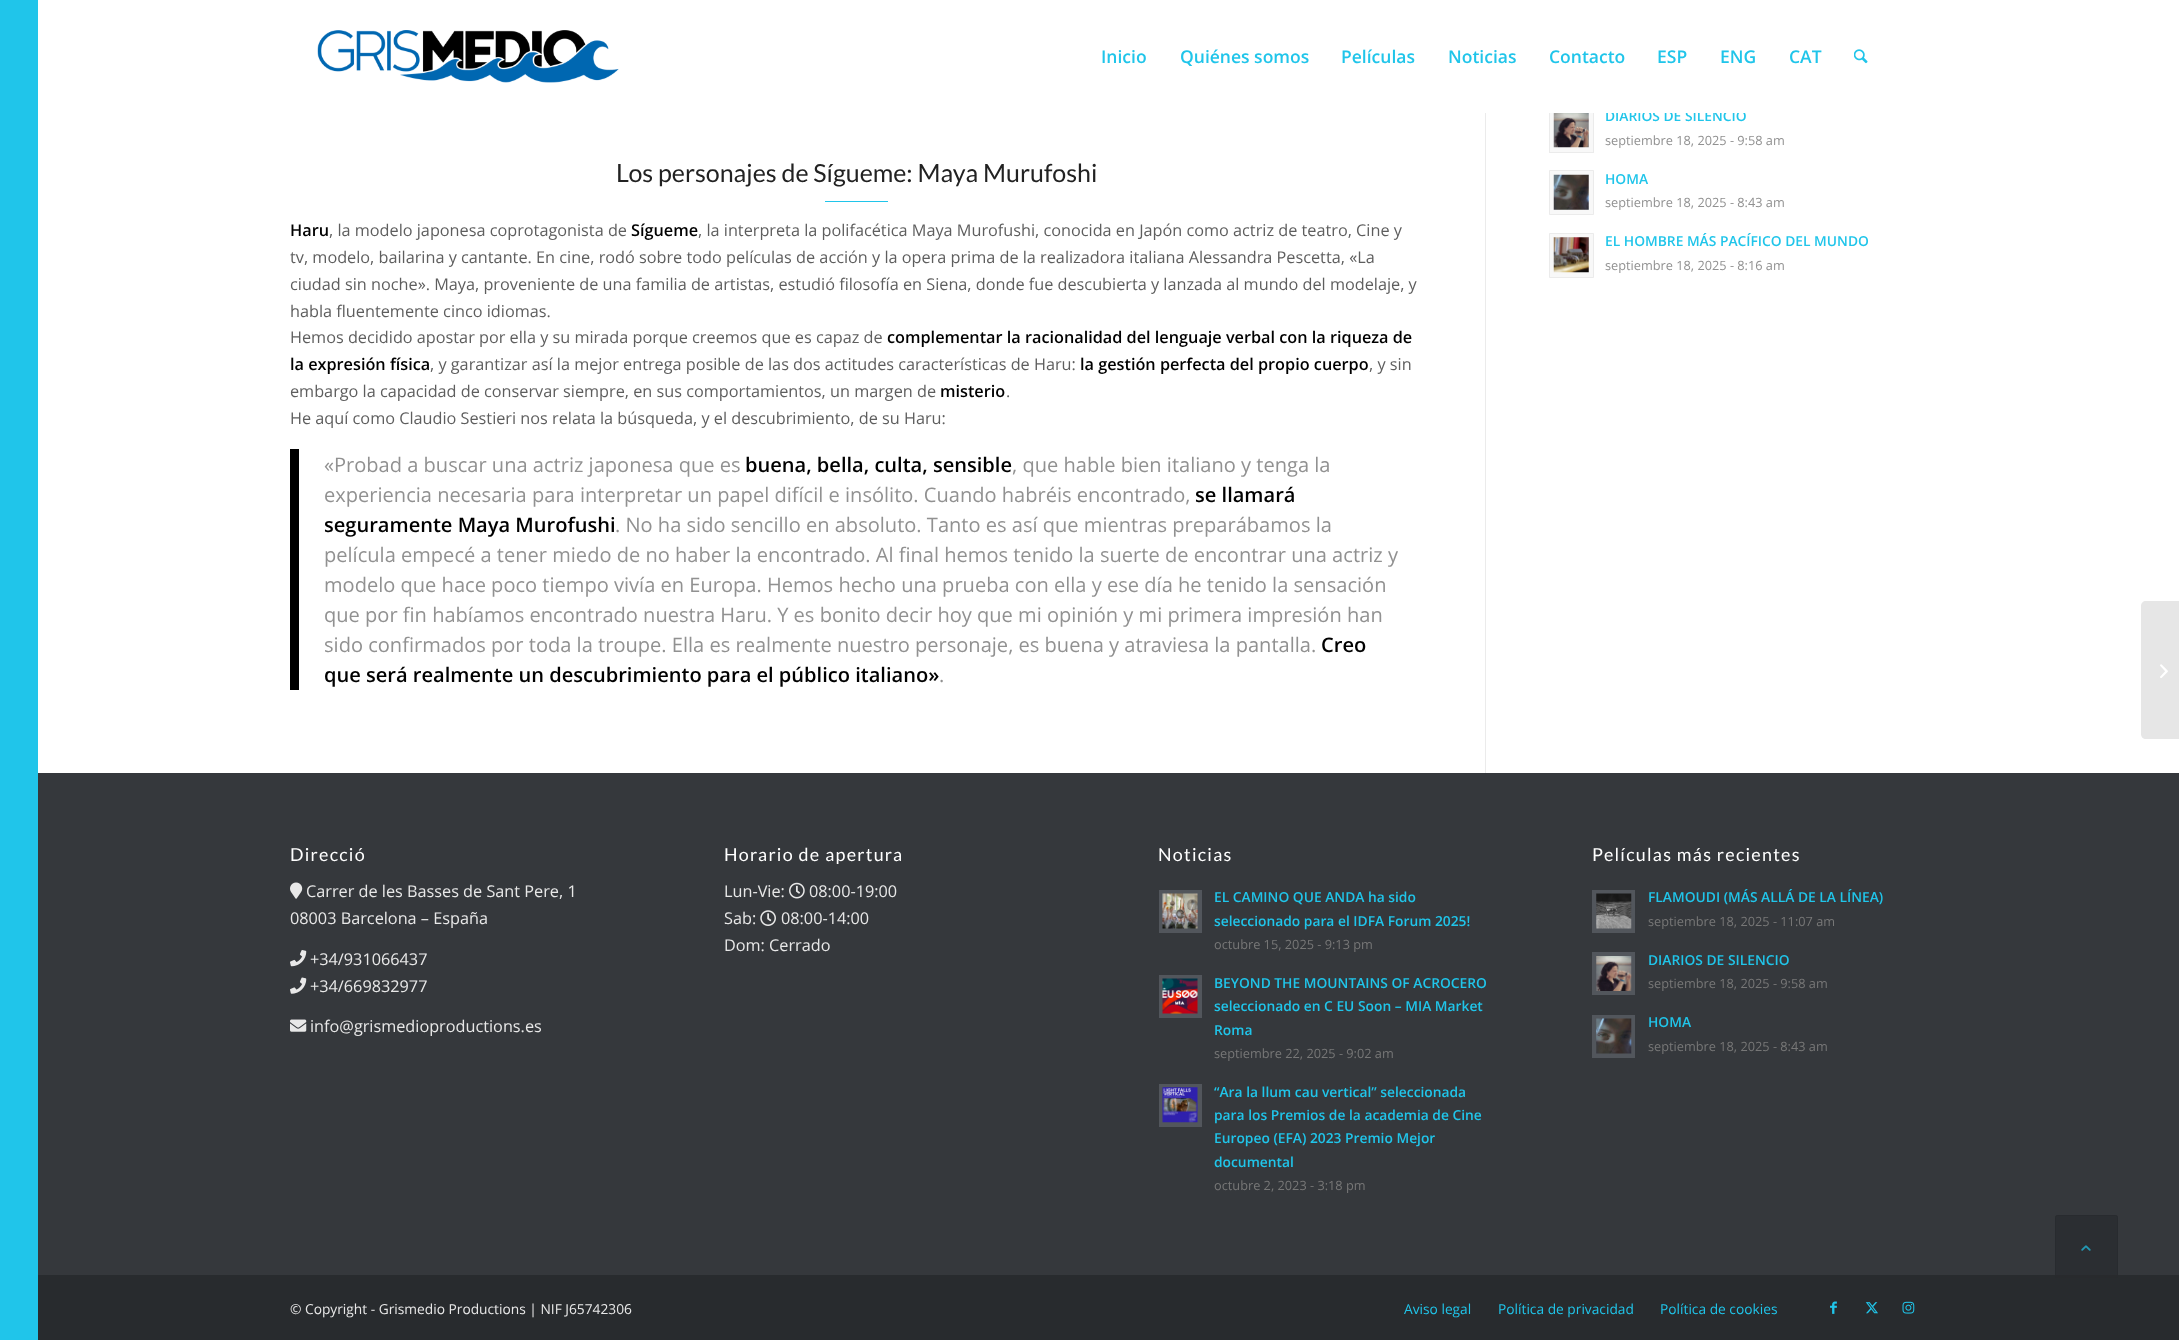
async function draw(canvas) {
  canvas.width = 2179;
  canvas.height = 1340;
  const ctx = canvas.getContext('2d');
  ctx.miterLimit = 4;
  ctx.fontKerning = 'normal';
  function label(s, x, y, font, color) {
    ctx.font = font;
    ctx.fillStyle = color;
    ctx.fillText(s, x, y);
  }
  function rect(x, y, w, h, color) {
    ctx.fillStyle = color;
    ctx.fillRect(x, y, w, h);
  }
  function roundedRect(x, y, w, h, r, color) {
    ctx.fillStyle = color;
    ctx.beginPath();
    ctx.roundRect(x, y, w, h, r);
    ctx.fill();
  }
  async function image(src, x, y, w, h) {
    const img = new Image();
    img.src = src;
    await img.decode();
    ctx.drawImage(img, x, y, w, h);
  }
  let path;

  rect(0, 0, 2179, 1340, '#20c5ea');
  rect(38, 113, 2141, 660, '#fff');
  rect(1550, 113, 43, 39, '#f8f8f8');
  ctx.strokeStyle = '#ebebeb';
  ctx.strokeRect(1549.5, 108.5, 44, 44);
  label('DIARIOS DE SILENCIO', 1605, 121, '600 13.8px Open Sans', '#20c5ea');
  rect(38, 0, 2141, 113, '#fff');
  await image('assets/img1.png', 317, 30, 302, 53);
  label('Inicio', 1101, 63, '600 17.5px Open Sans', '#20c5ea');
  label('Quiénes somos', 1180, 63, '600 17.5px Open Sans', '#20c5ea');
  label('Películas', 1341, 63, '600 17.5px Open Sans', '#20c5ea');
  label('Noticias', 1448, 63, '600 17.5px Open Sans', '#20c5ea');
  label('Contacto', 1549, 63, '600 17.5px Open Sans', '#20c5ea');
  label('ESP', 1657, 63, '600 17.5px Open Sans', '#20c5ea');
  label('ENG', 1720, 63, '600 17.5px Open Sans', '#20c5ea');
  label('CAT', 1789, 63, '600 17.5px Open Sans', '#20c5ea');
  await image('assets/img2.png', 1854, 49, 14, 15);
  rect(1485, 113, 1, 660, '#ebebeb');
  label('Los personajes de Sígueme: Maya Murufoshi', 616, 182, '25px Lato', '#222');
  rect(825, 201, 63, 1, '#20c5ea');
  label('Haru', 290, 236, '600 16.25px Open Sans', '#000');
  label(', la modelo japonesa coprotagonista de', 329, 236, '16.25px Open Sans', '#5e5e5e');
  label('Sígueme', 631, 236, '600 16.25px Open Sans', '#000');
  label(', la interpreta la polifacética Maya Murofushi, conocida en Japón como actriz de teatro, Cine y', 698, 236, '16.25px Open Sans', '#5e5e5e');
  label('tv, modelo, bailarina y cantante. En cine, rodó sobre todo películas de acción y la opera prima de la realizadora italiana Alessandra Pescetta, «La', 290, 263, '16.25px Open Sans', '#5e5e5e');
  label('ciudad sin noche». Maya, proveniente de una familia de artistas, estudió filosofía en Siena, donde fue descubierta y lanzada al mundo del modelaje, y', 290, 290, '16.25px Open Sans', '#5e5e5e');
  label('habla fluentemente cinco idiomas.', 290, 317, '16.25px Open Sans', '#5e5e5e');
  label('Hemos decidido apostar por ella y su mirada porque creemos que es capaz de', 290, 343, '16.25px Open Sans', '#5e5e5e');
  label('complementar la racionalidad del lenguaje verbal con la riqueza de', 887, 343, '600 16.25px Open Sans', '#000');
  label('la expresión física', 290, 370, '600 16.25px Open Sans', '#000');
  label(', y garantizar así la mejor entrega posible de las dos actitudes características de Haru:', 430, 370, '16.25px Open Sans', '#5e5e5e');
  label('la gestión perfecta del propio cuerpo', 1080, 370, '600 16.25px Open Sans', '#000');
  label(', y sin', 1369, 370, '16.25px Open Sans', '#5e5e5e');
  label('embargo la capacidad de conservar siempre, en sus comportamientos, un margen de', 290, 397, '16.25px Open Sans', '#5e5e5e');
  label('misterio', 940, 397, '600 16.25px Open Sans', '#000');
  label('.', 1006, 397, '16.25px Open Sans', '#5e5e5e');
  label('He aquí como Claudio Sestieri nos relata la búsqueda, y el descubrimiento, de su Haru:', 290, 424, '16.25px Open Sans', '#5e5e5e');
  rect(290, 449, 9, 241, '#000');
  label('«Probad a buscar una actriz japonesa que es', 324, 472, '20.07px Open Sans', '#919191');
  label('buena, bella, culta, sensible', 745, 472, '600 20.07px Open Sans', '#000');
  label(', que hable bien italiano y tenga la', 1012, 472, '20.07px Open Sans', '#919191');
  label('experiencia necesaria para interpretar un papel difícil e insólito. Cuando habréis encontrado,', 324, 502, '20.07px Open Sans', '#919191');
  label('se llamará', 1195, 502, '600 20.07px Open Sans', '#000');
  label('seguramente Maya Murofushi', 324, 532, '600 20.07px Open Sans', '#000');
  label('. No ha sido sencillo en absoluto. Tanto es así que mientras preparábamos la', 615, 532, '20.07px Open Sans', '#919191');
  label('película empecé a tener miedo de no haber la encontrado. Al final hemos tenido la suerte de encontrar una actriz y', 324, 562, '20.07px Open Sans', '#919191');
  label('modelo que hace poco tiempo vivía en Europa. Hemos hecho una prueba con ella y ese día he tenido la sensación', 324, 592, '20.07px Open Sans', '#919191');
  label('que por fin habíamos encontrado nuestra Haru. Y es bonito decir hoy que mi opinión y mi primera impresión han', 324, 622, '20.07px Open Sans', '#919191');
  label('sido confirmados por toda la troupe. Ella es realmente nuestro personaje, es buena y atraviesa la pantalla.', 324, 652, '20.07px Open Sans', '#919191');
  label('Creo', 1321, 652, '600 20.07px Open Sans', '#000');
  label('que será realmente un descubrimiento para el público italiano»', 324, 682, '600 20.07px Open Sans', '#000');
  label('.', 939, 682, '20.07px Open Sans', '#919191');
  await image('assets/img3.png', 1553, 113, 36, 35);
  label('septiembre 18, 2025 - 9:58 am', 1605, 145, '12.75px Open Sans', '#919191');
  ctx.fillStyle = '#f8f8f8';
  ctx.beginPath();
  ctx.rect(1549.5, 170.5, 44, 44);
  ctx.fill();
  ctx.stroke();
  await image('assets/img4.png', 1553, 174, 36, 36);
  label('HOMA', 1605, 184, '600 13.8px Open Sans', '#20c5ea');
  label('septiembre 18, 2025 - 8:43 am', 1605, 207, '12.75px Open Sans', '#919191');
  ctx.fillStyle = '#f8f8f8';
  ctx.beginPath();
  ctx.rect(1549.5, 233.5, 44, 44);
  ctx.fill();
  ctx.stroke();
  await image('assets/img5.png', 1553, 237, 36, 36);
  label('EL HOMBRE MÁS PACÍFICO DEL MUNDO', 1605, 246, '600 13.8px Open Sans', '#20c5ea');
  label('septiembre 18, 2025 - 8:16 am', 1605, 270, '12.75px Open Sans', '#919191');
  rect(38, 773, 2141, 502, '#35383c');
  ctx.letterSpacing = '1.25px';
  label('Direcció', 290, 861, '17.9px Lato', '#fff');
  await image('assets/img6.png', 290, 882, 13, 17);
  ctx.letterSpacing = '0px';
  label('Carrer de les Basses de Sant Pere, 1', 306, 897, '16.25px Open Sans', '#e8e8e8');
  label('08003 Barcelona – España', 290, 924, '16.25px Open Sans', '#e8e8e8');
  await image('assets/img7.png', 290, 950, 17, 17);
  label('+34/931066437', 310, 965, '16.25px Open Sans', '#e8e8e8');
  await image('assets/img8.png', 290, 977, 17, 17);
  label('+34/669832977', 310, 992, '16.25px Open Sans', '#e8e8e8');
  await image('assets/img9.png', 290, 1019, 17, 13);
  label('info@grismedioproductions.es', 310, 1032, '16.25px Open Sans', '#e8e8e8');
  ctx.letterSpacing = '1.25px';
  label('Horario de apertura', 724, 861, '17.9px Lato', '#fff');
  ctx.letterSpacing = '0px';
  label('Lun-Vie:', 724, 897, '16.25px Open Sans', '#e8e8e8');
  await image('assets/img10.png', 789, 882, 16, 17);
  label('08:00-19:00', 809, 897, '16.25px Open Sans', '#e8e8e8');
  label('Sab:', 724, 924, '16.25px Open Sans', '#e8e8e8');
  await image('assets/img11.png', 760, 910, 16, 16);
  label('08:00-14:00', 781, 924, '16.25px Open Sans', '#e8e8e8');
  label('Dom: Cerrado', 724, 951, '16.25px Open Sans', '#e8e8e8');
  ctx.letterSpacing = '1.25px';
  label('Noticias', 1158, 861, '17.9px Lato', '#fff');
  rect(1159, 890, 43, 43, '#52565c');
  await image('assets/img12.png', 1162, 893, 36, 36);
  ctx.letterSpacing = '0px';
  label('EL CAMINO QUE ANDA ha sido', 1214, 902, '600 13.8px Open Sans', '#20c5ea');
  label('seleccionado para el IDFA Forum 2025!', 1214, 926, '600 13.8px Open Sans', '#20c5ea');
  label('octubre 15, 2025 - 9:13 pm', 1214, 949, '12.75px Open Sans', '#777');
  rect(1159, 975, 43, 43, '#52565c');
  await image('assets/img13.png', 1162, 978, 36, 36);
  label('BEYOND THE MOUNTAINS OF ACROCERO', 1214, 988, '600 13.8px Open Sans', '#20c5ea');
  label('seleccionado en C EU Soon – MIA Market', 1214, 1011, '600 13.8px Open Sans', '#20c5ea');
  label('Roma', 1214, 1035, '600 13.8px Open Sans', '#20c5ea');
  label('septiembre 22, 2025 - 9:02 am', 1214, 1058, '12.75px Open Sans', '#777');
  rect(1159, 1084, 43, 43, '#52565c');
  await image('assets/img14.png', 1162, 1087, 36, 36);
  label('“Ara la llum cau vertical” seleccionada', 1214, 1097, '600 13.8px Open Sans', '#20c5ea');
  label('para los Premios de la academia de Cine', 1214, 1120, '600 13.8px Open Sans', '#20c5ea');
  label('Europeo (EFA) 2023 Premio Mejor', 1214, 1143, '600 13.8px Open Sans', '#20c5ea');
  label('documental', 1214, 1167, '600 13.8px Open Sans', '#20c5ea');
  label('octubre 2, 2023 - 3:18 pm', 1214, 1190, '12.75px Open Sans', '#777');
  ctx.letterSpacing = '1.25px';
  label('Películas más recientes', 1592, 861, '17.9px Lato', '#fff');
  rect(1592, 890, 43, 43, '#52565c');
  await image('assets/img15.png', 1596, 893, 36, 36);
  ctx.letterSpacing = '0px';
  label('FLAMOUDI (MÁS ALLÁ DE LA LÍNEA)', 1648, 902, '600 13.8px Open Sans', '#20c5ea');
  label('septiembre 18, 2025 - 11:07 am', 1648, 926, '12.75px Open Sans', '#777');
  rect(1592, 952, 43, 43, '#52565c');
  await image('assets/img16.png', 1596, 956, 36, 35);
  label('DIARIOS DE SILENCIO', 1648, 965, '600 13.8px Open Sans', '#20c5ea');
  label('septiembre 18, 2025 - 9:58 am', 1648, 988, '12.75px Open Sans', '#777');
  rect(1592, 1015, 43, 43, '#52565c');
  await image('assets/img17.png', 1596, 1018, 36, 36);
  label('HOMA', 1648, 1027, '600 13.8px Open Sans', '#20c5ea');
  label('septiembre 18, 2025 - 8:43 am', 1648, 1051, '12.75px Open Sans', '#777');
  rect(38, 1275, 2141, 65, '#282b2e');
  label('© Copyright - Grismedio Productions | NIF J65742306', 290, 1314, '13.75px Open Sans', '#e8e8e8');
  label('Aviso legal', 1404, 1314, '13.75px Open Sans', '#20c5ea');
  label('Política de privacidad', 1498, 1314, '13.75px Open Sans', '#20c5ea');
  label('Política de cookies', 1660, 1314, '13.75px Open Sans', '#20c5ea');
  await image('assets/img18.png', 1830, 1301, 7, 13);
  await image('assets/img19.png', 1865, 1302, 13, 12);
  await image('assets/img20.png', 1902, 1301, 13, 13);
  ctx.fillStyle = '#e6e6e6';
  path = new Path2D('M2146 601H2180V739H2146C2143 739 2141 737 2141 734V606C2141 603 2143 601 2146 601Z');
  ctx.fill(path);
  await image('assets/img21.png', 2160, 664, 8, 14);
  roundedRect(2055, 1215, 63, 63, 2.5, '#282b2eb3');
  ctx.beginPath();
  ctx.roundRect(2055.5, 1215.5, 62, 62, 2);
  ctx.strokeStyle = '#282b2eb3';
  ctx.stroke();
  await image('assets/img22.png', 2081, 1245, 10, 6);
}

draw(document.querySelector('canvas'));
